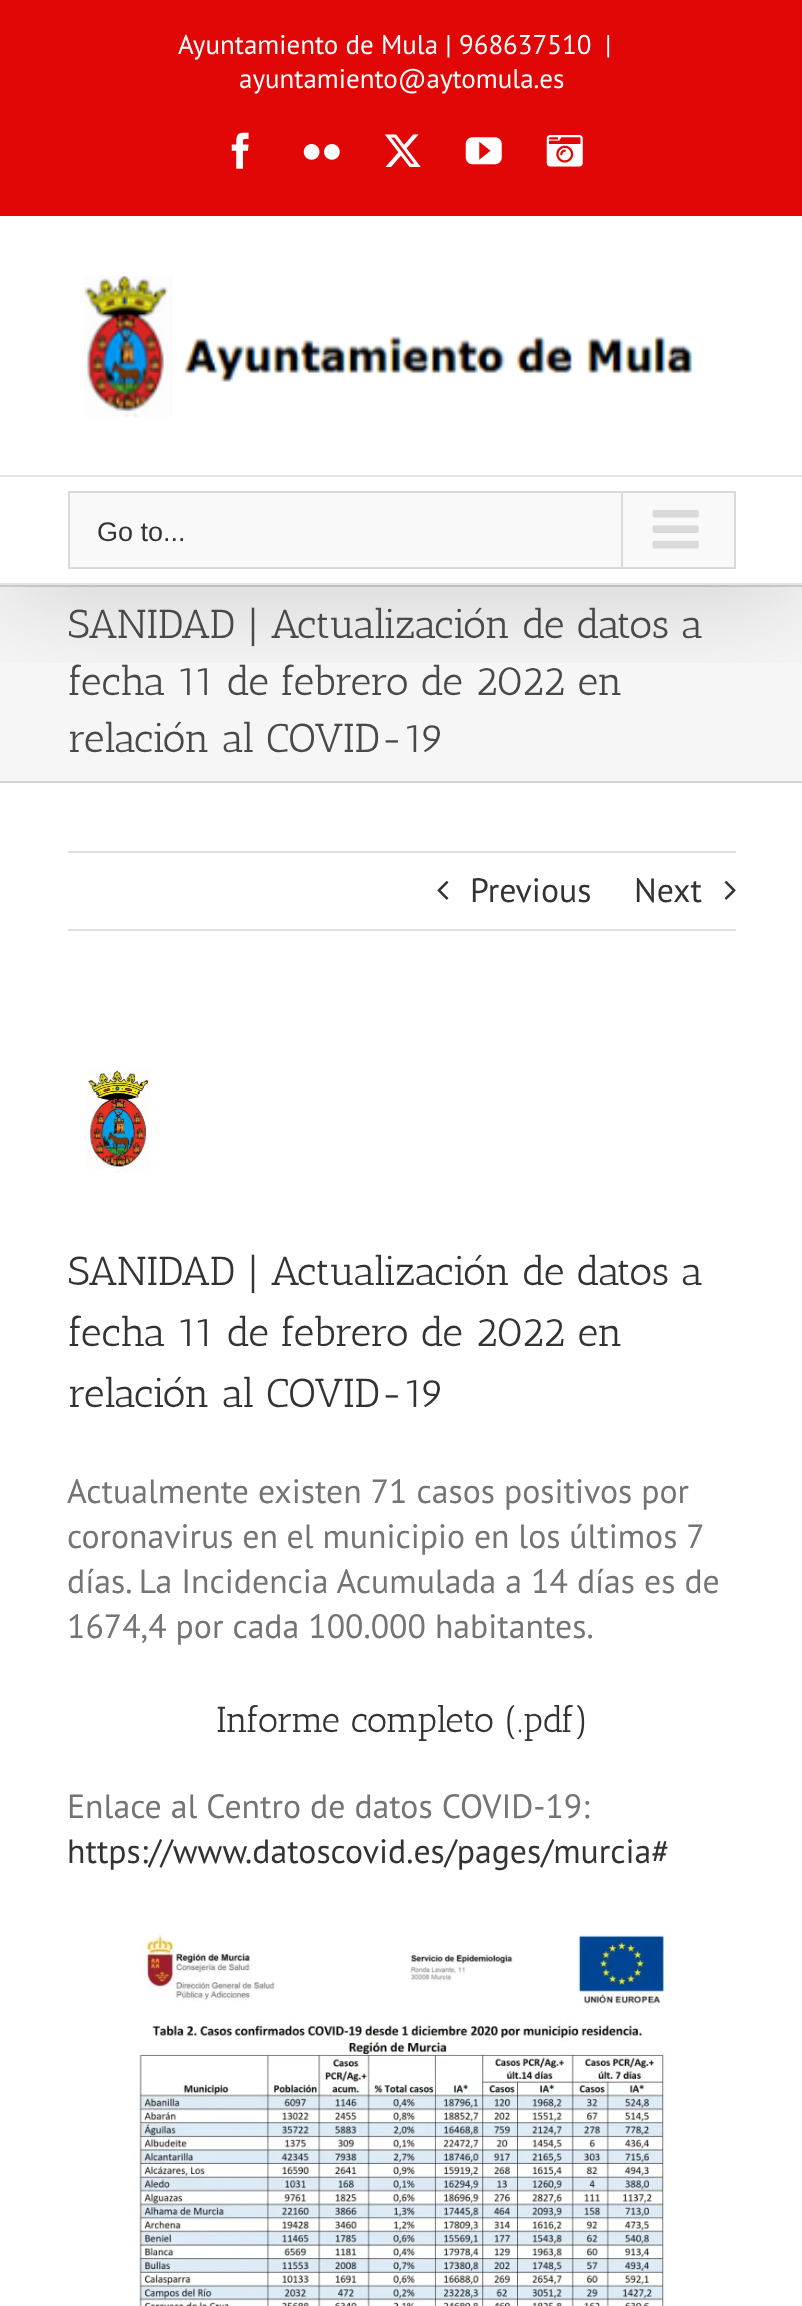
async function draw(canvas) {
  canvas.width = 802;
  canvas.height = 2306;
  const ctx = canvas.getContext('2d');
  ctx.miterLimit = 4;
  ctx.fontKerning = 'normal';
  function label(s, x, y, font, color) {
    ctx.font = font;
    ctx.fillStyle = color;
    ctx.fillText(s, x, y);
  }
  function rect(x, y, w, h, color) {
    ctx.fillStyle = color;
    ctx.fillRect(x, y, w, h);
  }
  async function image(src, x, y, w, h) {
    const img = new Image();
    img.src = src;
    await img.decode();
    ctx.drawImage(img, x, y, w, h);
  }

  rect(0, 0, 802, 2306, '#fff');
  rect(0, 587, 802, 194, '#f6f6f6');
  rect(0, 585, 802, 2, '#d2d3d4');
  ctx.save();
  ctx.beginPath();
  ctx.rect(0, 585, 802, 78);
  ctx.clip();
  ctx.fillStyle = '#00000024';
  ctx.filter = 'blur(56px)';
  ctx.beginPath();
  ctx.rect(5, 16, 794, 587);
  ctx.fill();
  ctx.filter = 'none';
  ctx.restore();
  rect(0, 0, 802, 216, '#e10707');
  label('Ayuntamiento de Mula | 968637510', 178, 54, '27px PT Sans', '#fff');
  label('|', 605, 54, '27px PT Sans', '#fff');
  label('ayuntamiento@aytomula.es', 239, 88, '27px PT Sans', '#fff');
  await image('assets/img1.png', 231, 132, 18, 37);
  await image('assets/img2.png', 303, 144, 37, 16);
  await image('assets/img3.png', 384, 134, 37, 33);
  await image('assets/img4.png', 465, 137, 37, 28);
  await image('assets/img5.png', 546, 135, 37, 32);
  rect(0, 475, 802, 2, '#e5e5e5');
  await image('assets/img6.png', 84, 276, 610, 142);
  rect(0, 583, 802, 2, '#e5e5e5');
  ctx.fillStyle = '#f9f9f9';
  ctx.beginPath();
  ctx.rect(69, 492, 666, 76);
  ctx.fill();
  ctx.strokeStyle = '#dadada';
  ctx.lineWidth = 2;
  ctx.stroke();
  label('Go to...', 97, 541, '27px Liberation Sans', '#333');
  rect(621, 493, 2, 74, '#dadada');
  await image('assets/img7.png', 652, 510, 47, 39);
  rect(0, 781, 802, 2, '#d2d3d4');
  label('SANIDAD | Actualización de datos a', 68, 638, '40.5px Antic Slab', '#494949');
  label('fecha 11 de febrero de 2022 en', 68, 695, '40.5px Antic Slab', '#494949');
  label('relación al COVID-19', 68, 752, '40.5px Antic Slab', '#494949');
  rect(68, 851, 668, 2, '#e0dede');
  rect(68, 929, 668, 2, '#e0dede');
  await image('assets/img8.png', 437, 881, 12, 19);
  label('Previous', 470, 902, '33.75px PT Sans', '#333');
  label('Next', 634, 902, '33.75px PT Sans', '#333');
  await image('assets/img9.png', 724, 881, 12, 19);
  await image('assets/img10.png', 85, 1070, 66, 103);
  label('SANIDAD | Actualización de datos a', 68, 1285, '40.5px Antic Slab', '#333');
  label('fecha 11 de febrero de 2022 en', 68, 1346, '40.5px Antic Slab', '#333');
  label('relación al COVID-19', 68, 1407, '40.5px Antic Slab', '#333');
  label('Actualmente existen 71 casos positivos por', 67, 1503, '33.75px PT Sans', '#747474');
  ctx.wordSpacing = '-0.25px';
  label('coronavirus en el municipio en los últimos 7', 67, 1548, '33.75px PT Sans', '#747474');
  ctx.wordSpacing = '0px';
  label('días. La Incidencia Acumulada a 14 días es de', 67, 1593, '33.75px PT Sans', '#747474');
  label('1674,4 por cada 100.000 habitantes.', 67, 1638, '33.75px PT Sans', '#747474');
  label('Informe completo (.pdf)', 216, 1732, '36px Antic Slab', '#333');
  label('Enlace al Centro de datos COVID-19:', 67, 1818, '33.75px PT Sans', '#747474');
  label('https://www.datoscovid.es/pages/murcia#', 67, 1863, '33.75px PT Sans', '#333');
  await image('assets/img11.png', 137, 1934, 529, 372);
}

draw(document.querySelector('canvas'));
